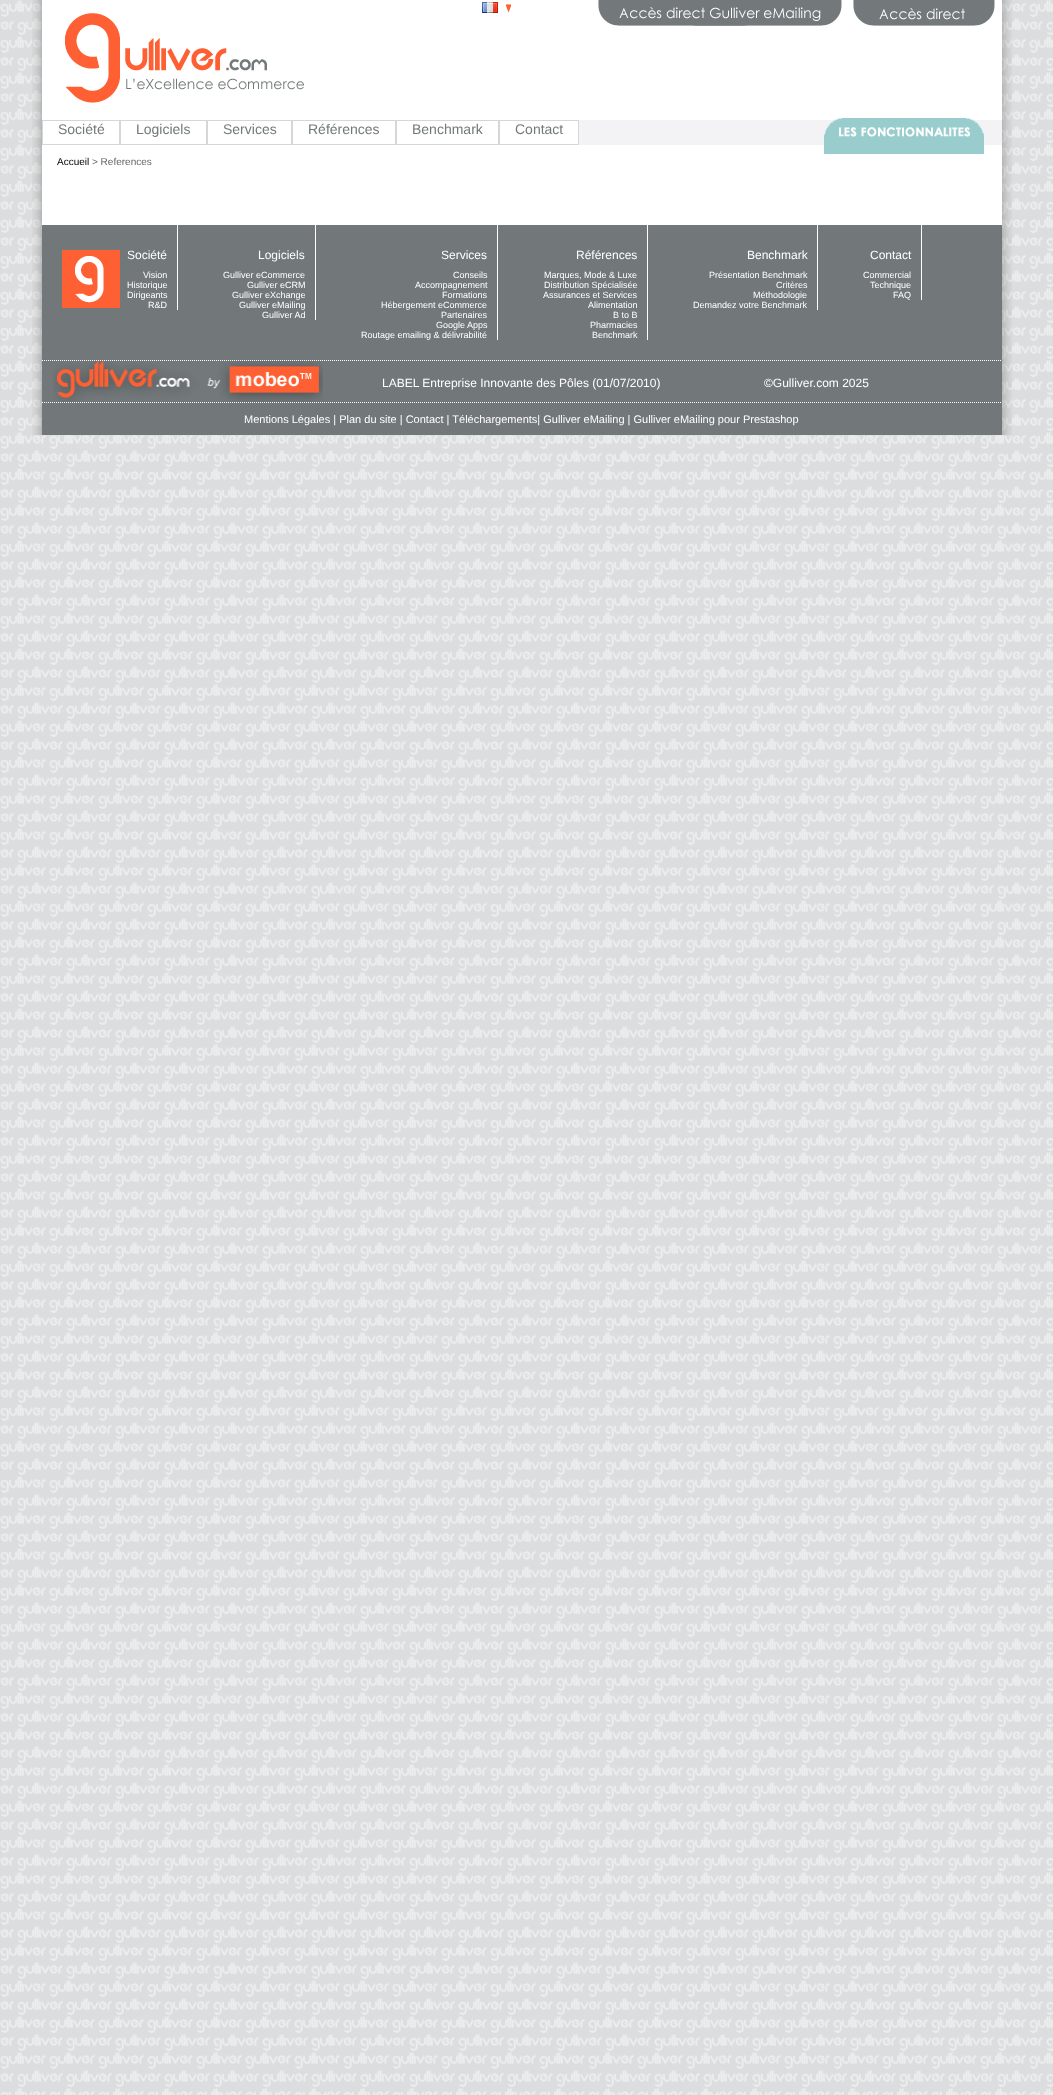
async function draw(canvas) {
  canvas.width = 1053;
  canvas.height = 2095;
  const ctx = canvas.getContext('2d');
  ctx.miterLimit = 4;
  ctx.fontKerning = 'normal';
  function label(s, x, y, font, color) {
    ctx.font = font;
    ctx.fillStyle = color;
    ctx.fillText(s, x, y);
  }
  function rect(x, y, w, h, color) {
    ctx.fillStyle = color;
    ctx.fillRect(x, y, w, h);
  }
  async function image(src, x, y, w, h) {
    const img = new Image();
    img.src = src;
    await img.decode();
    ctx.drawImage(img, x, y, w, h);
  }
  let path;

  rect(0, 0, 1053, 2095, '#dcddde');
  await image('assets/img1.png', 0, 0, 1053, 2095);
  await image('assets/img2.png', 32, 0, 980, 120);
  await image('assets/img3.png', 482, 2, 16, 11);
  await image('assets/img4.png', 506, 4, 5, 9);
  await image('assets/img5.png', 598, 0, 244, 26);
  await image('assets/img6.png', 853, 0, 142, 26);
  await image('assets/img7.png', 65, 13, 239, 90);
  await image('assets/img8.png', 32, 120, 980, 25);
  rect(579, 120, 423, 25, '#f3f3f5');
  ctx.strokeStyle = '#d5d7d7';
  ctx.strokeRect(42.5, 120.5, 77, 24);
  label('Société', 58, 134, '14px Liberation Sans', '#73797b');
  ctx.strokeRect(120.5, 120.5, 86, 24);
  label('Logiciels', 136, 134, '14px Liberation Sans', '#73797b');
  ctx.strokeRect(207.5, 120.5, 84, 24);
  label('Services', 223, 134, '14px Liberation Sans', '#73797b');
  ctx.strokeRect(292.5, 120.5, 103, 24);
  label('Références', 308, 134, '14px Liberation Sans', '#73797b');
  ctx.strokeRect(396.5, 120.5, 102, 24);
  label('Benchmark', 412, 134, '14px Liberation Sans', '#73797b');
  ctx.strokeRect(499.5, 120.5, 79, 24);
  label('Contact', 515, 134, '14px Liberation Sans', '#73797b');
  await image('assets/img10.png', 32, 145, 980, 30);
  await image('assets/img9.png', 824, 118, 160, 36);
  label('Accueil', 57, 165, '10px Liberation Sans', '#000');
  label('> References', 92, 165, '10px Liberation Sans', '#666');
  await image('assets/img11.png', 32, 175, 980, 260);
  rect(42, 225, 960, 210, '#72787a');
  await image('assets/img12.png', 62, 250, 58, 58);
  rect(177, 225, 1, 85, '#fff');
  label('Société', 127, 259, '12px Liberation Sans', '#fff');
  label('Vision', 143, 278, '9px Liberation Sans', '#fff');
  label('Historique', 127, 288, '9px Liberation Sans', '#fff');
  label('Dirigeants', 127, 298, '9px Liberation Sans', '#fff');
  label('R&D', 148, 308, '9px Liberation Sans', '#fff');
  rect(315, 225, 1, 95, '#fff');
  label('Logiciels', 258, 259, '12px Liberation Sans', '#fff');
  label('Gulliver eCommerce', 223, 278, '9px Liberation Sans', '#fff');
  label('Gulliver eCRM', 247, 288, '9px Liberation Sans', '#fff');
  label('Gulliver eXchange', 232, 298, '9px Liberation Sans', '#fff');
  label('Gulliver eMailing', 239, 308, '9px Liberation Sans', '#fff');
  label('Gulliver Ad', 262, 318, '9px Liberation Sans', '#fff');
  rect(497, 225, 1, 115, '#fff');
  label('Services', 441, 259, '12px Liberation Sans', '#fff');
  label('Conseils', 453, 278, '9px Liberation Sans', '#fff');
  label('Accompagnement', 415, 288, '9px Liberation Sans', '#fff');
  label('Formations', 442, 298, '9px Liberation Sans', '#fff');
  label('Hébergement eCommerce', 381, 308, '9px Liberation Sans', '#fff');
  label('Partenaires', 441, 318, '9px Liberation Sans', '#fff');
  label('Google Apps', 436, 328, '9px Liberation Sans', '#fff');
  label('Routage emailing & délivrabilité', 361, 338, '9px Liberation Sans', '#fff');
  rect(647, 225, 1, 115, '#fff');
  label('Références', 576, 259, '12px Liberation Sans', '#fff');
  label('Marques, Mode & Luxe', 544, 278, '9px Liberation Sans', '#fff');
  label('Distribution Spécialisée', 544, 288, '9px Liberation Sans', '#fff');
  label('Assurances et Services', 543, 298, '9px Liberation Sans', '#fff');
  label('Alimentation', 588, 308, '9px Liberation Sans', '#fff');
  label('B to B', 613, 318, '9px Liberation Sans', '#fff');
  label('Pharmacies', 590, 328, '9px Liberation Sans', '#fff');
  label('Benchmark', 592, 338, '9px Liberation Sans', '#fff');
  rect(817, 225, 1, 85, '#fff');
  label('Benchmark', 747, 259, '12px Liberation Sans', '#fff');
  label('Présentation Benchmark', 709, 278, '9px Liberation Sans', '#fff');
  label('Critères', 776, 288, '9px Liberation Sans', '#fff');
  label('Méthodologie', 753, 298, '9px Liberation Sans', '#fff');
  label('Demandez votre Benchmark', 693, 308, '9px Liberation Sans', '#fff');
  rect(921, 225, 1, 75, '#fff');
  label('Contact', 870, 259, '12px Liberation Sans', '#fff');
  label('Commercial', 863, 278, '9px Liberation Sans', '#fff');
  label('Technique', 870, 288, '9px Liberation Sans', '#fff');
  label('FAQ', 893, 298, '9px Liberation Sans', '#fff');
  await image('assets/img13.png', 53, 361, 270, 41);
  path = new Path2D('M42 360.5H1002');
  ctx.strokeStyle = '#fff';
  ctx.setLineDash([1, 1]);
  ctx.stroke(path);
  path = new Path2D('M42 402.5H1002');
  ctx.stroke(path);
  label('LABEL Entreprise Innovante des Pôles (01/07/2010)', 382, 387, '12px Liberation Sans', '#fff');
  label('©Gulliver.com 2025', 764, 387, '12px Liberation Sans', '#fff');
  label('Mentions Légales | Plan du site | Contact | Téléchargements| Gulliver eMailing | Gulliver eMailing pour Prestashop', 244, 423, '11px Liberation Sans', '#fff');
}

draw(document.querySelector('canvas'));
